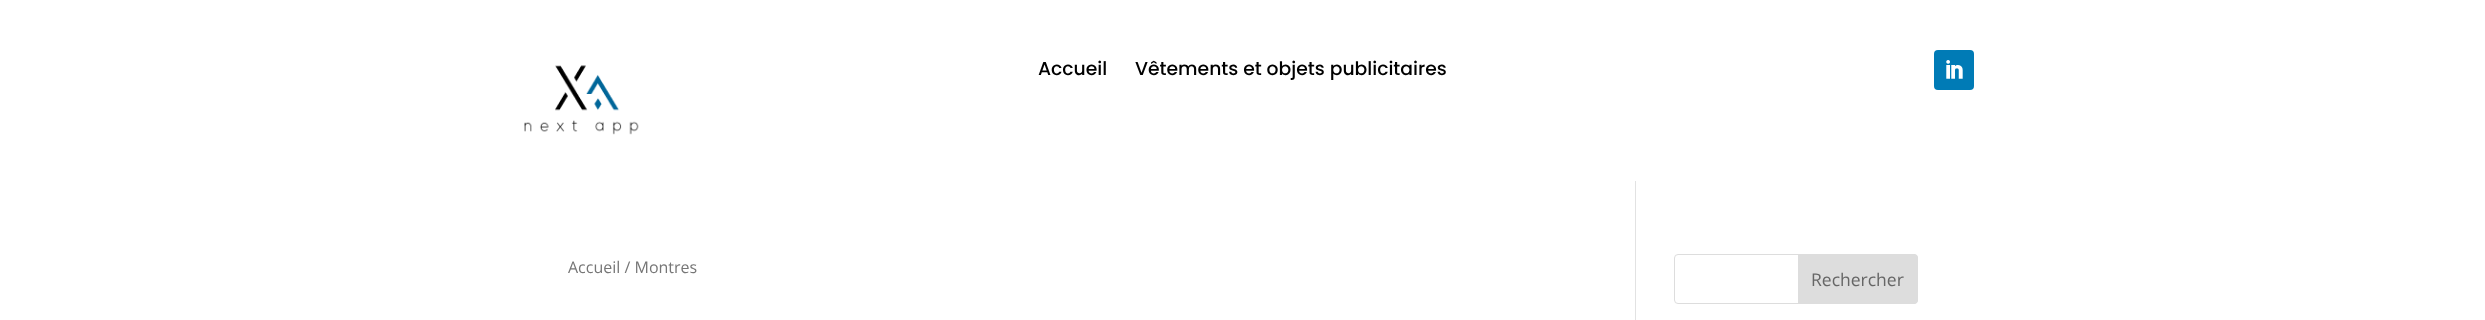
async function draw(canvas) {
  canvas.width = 2485;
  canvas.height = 320;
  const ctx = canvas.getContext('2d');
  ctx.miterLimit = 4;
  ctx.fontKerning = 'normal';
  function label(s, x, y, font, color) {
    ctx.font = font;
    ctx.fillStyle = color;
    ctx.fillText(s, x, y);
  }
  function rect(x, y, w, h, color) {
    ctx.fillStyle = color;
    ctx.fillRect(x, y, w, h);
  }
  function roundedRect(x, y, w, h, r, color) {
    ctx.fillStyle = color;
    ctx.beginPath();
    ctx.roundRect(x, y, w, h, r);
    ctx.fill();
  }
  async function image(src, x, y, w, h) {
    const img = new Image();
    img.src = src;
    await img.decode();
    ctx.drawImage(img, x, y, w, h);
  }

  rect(0, 0, 2485, 320, '#fff');
  await image('assets/img1.png', 524, 65, 115, 70);
  label('Accueil', 1038, 75, '500 18.75px Poppins', '#000');
  label('Vêtements et objets publicitaires', 1135, 75, '500 18.75px Poppins', '#000');
  roundedRect(1934, 50, 40, 40, 4, '#007bb6');
  await image('assets/img2.png', 1946, 60, 17, 19);
  rect(1635, 181, 1, 139, '#e2e2e2');
  label('Accueil / Montres', 568, 273, '16px Open Sans', '#767676');
  ctx.beginPath();
  ctx.roundRect(1674.5, 254.5, 243, 49, 3.5);
  ctx.strokeStyle = '#ddd';
  ctx.stroke();
  ctx.fillStyle = '#ddd';
  ctx.beginPath();
  ctx.roundRect(1798.5, 254.5, 119, 49, [0, 3.5, 3.5, 0]);
  ctx.fill();
  ctx.stroke();
  label('Rechercher', 1811, 286, '17.5px Open Sans', '#666');
}

draw(document.querySelector('canvas'));
